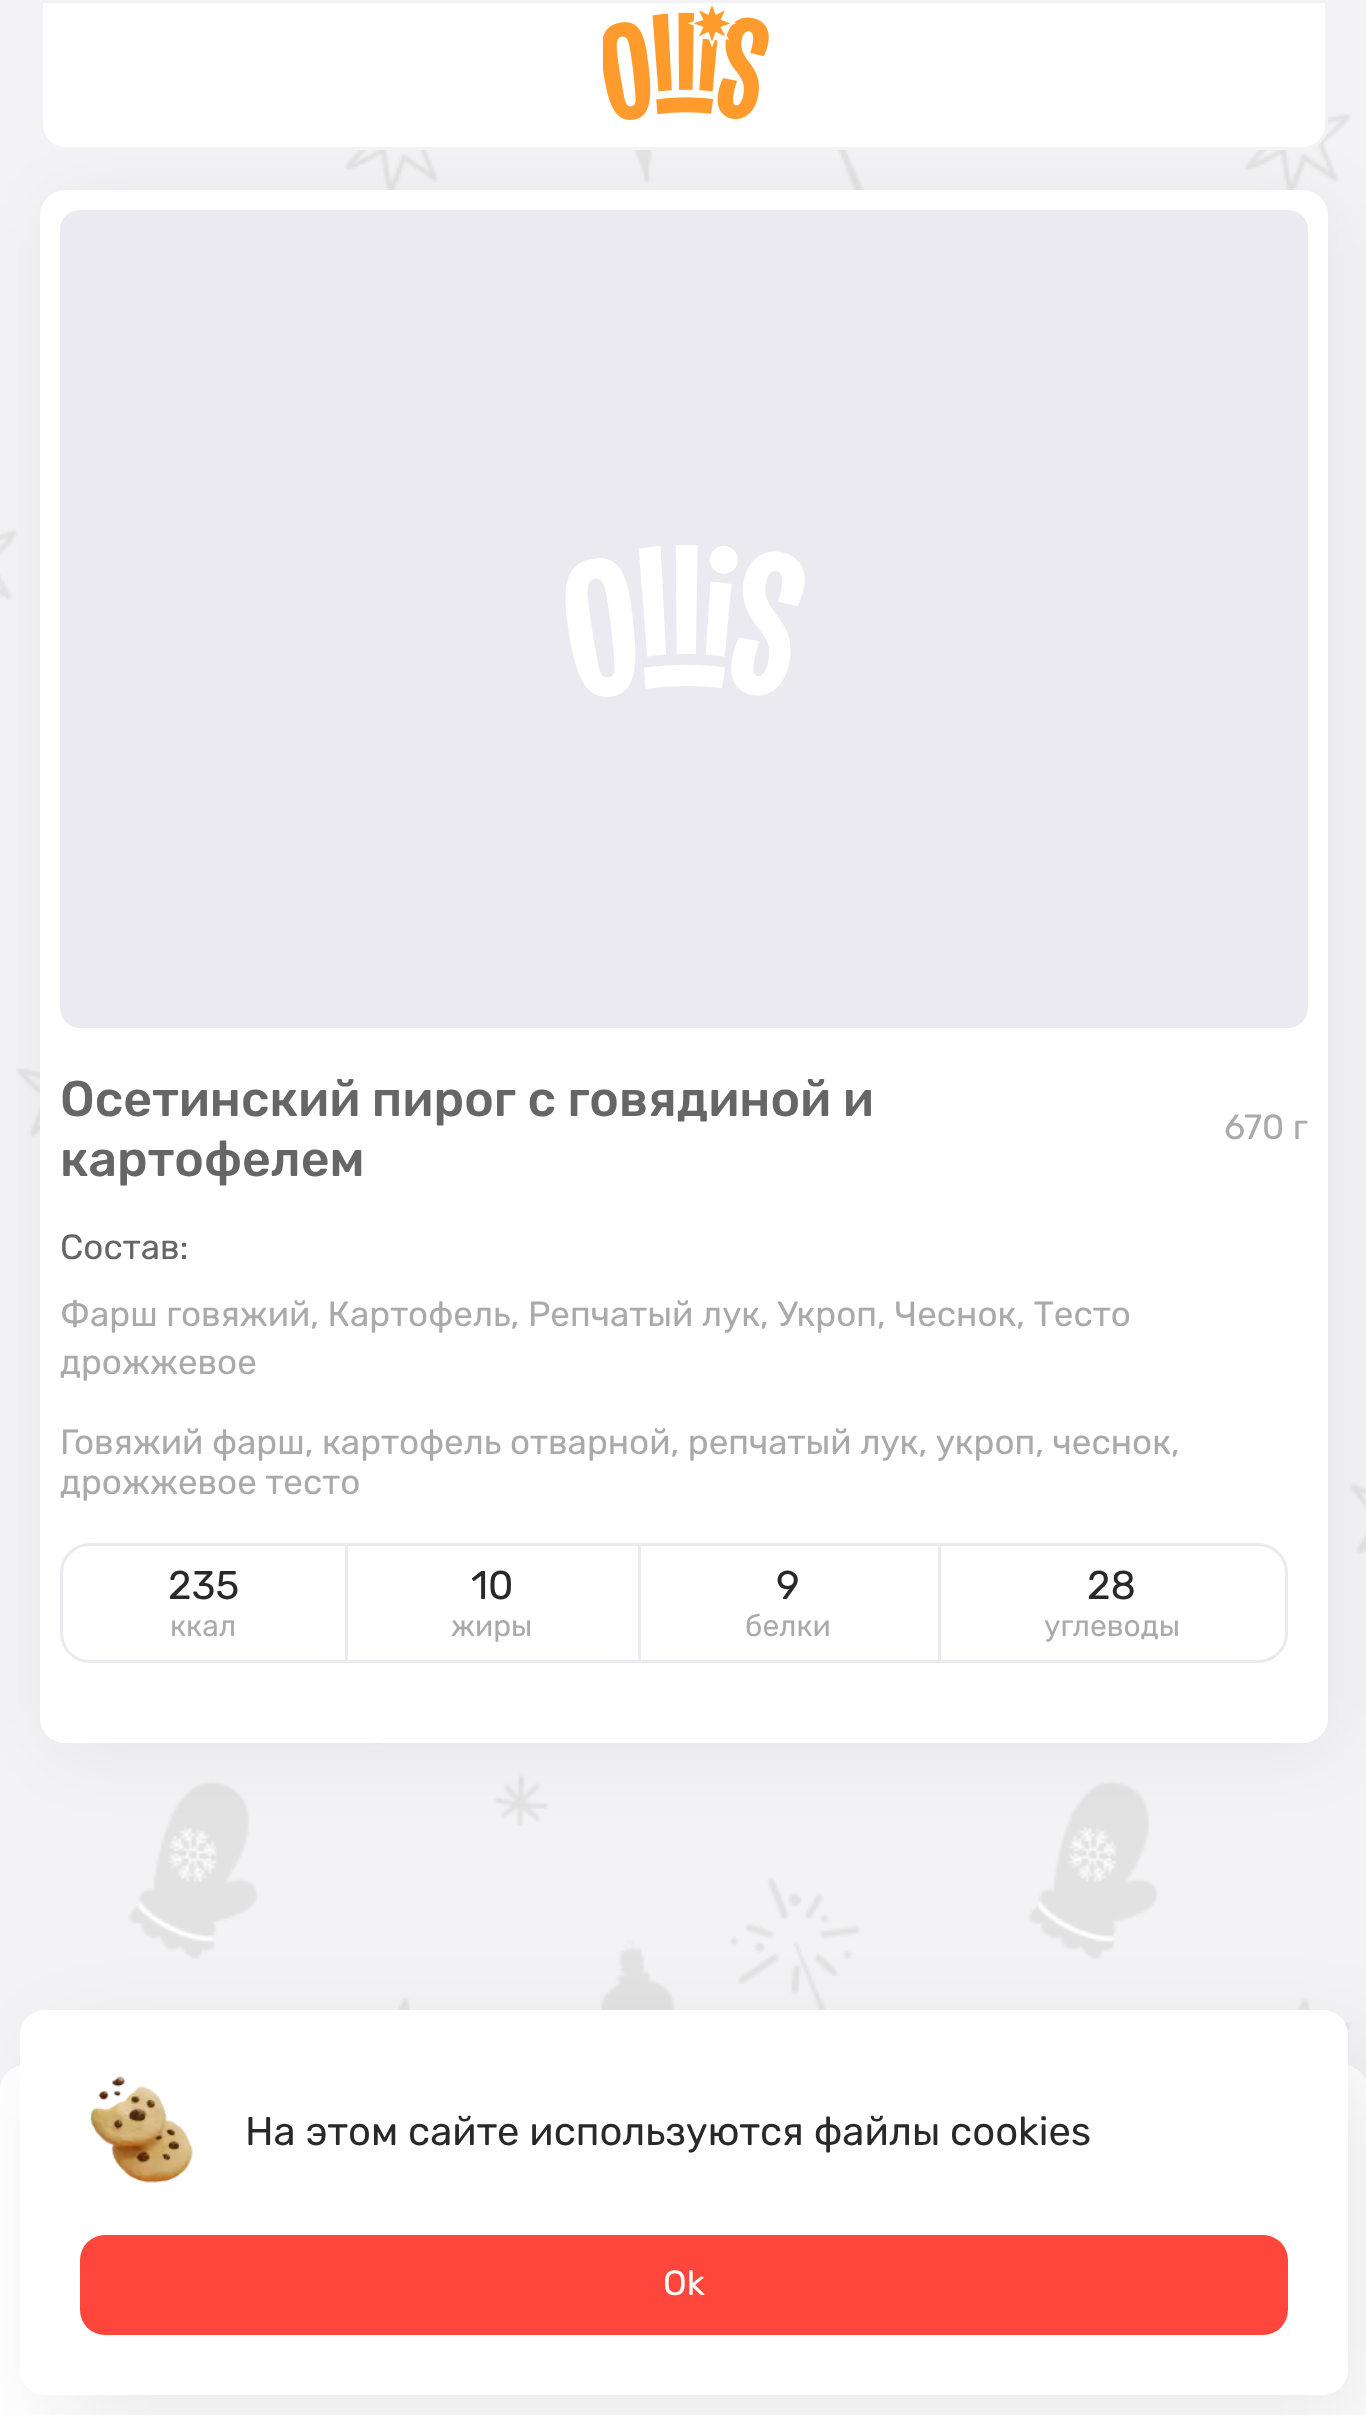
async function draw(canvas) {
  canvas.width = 1366;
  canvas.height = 2415;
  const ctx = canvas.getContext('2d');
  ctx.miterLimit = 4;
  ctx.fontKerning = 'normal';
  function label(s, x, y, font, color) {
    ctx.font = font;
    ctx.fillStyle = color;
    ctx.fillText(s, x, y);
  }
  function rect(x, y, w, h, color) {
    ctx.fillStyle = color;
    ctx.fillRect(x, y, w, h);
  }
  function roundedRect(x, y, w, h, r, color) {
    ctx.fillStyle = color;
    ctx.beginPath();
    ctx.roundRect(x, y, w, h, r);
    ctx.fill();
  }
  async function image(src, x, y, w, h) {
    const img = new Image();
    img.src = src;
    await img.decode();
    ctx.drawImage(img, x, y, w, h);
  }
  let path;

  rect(0, 0, 1366, 2415, '#f3f3f5');
  await image('assets/img1.png', 0, 113, 1366, 1919);
  ctx.fillStyle = '#0000000d';
  ctx.filter = 'blur(37.5px)';
  ctx.beginPath();
  ctx.roundRect(50, 200, 1288, 1553, 25);
  ctx.fill();
  ctx.filter = 'none';
  ctx.fillStyle = '#fff';
  ctx.beginPath();
  ctx.roundRect(41.5, 1.5, 1285, 147, [0, 0, 23.5, 23.5]);
  ctx.fill();
  ctx.strokeStyle = '#f3f3f5';
  ctx.lineWidth = 3;
  ctx.stroke();
  await image('assets/img2.png', 603, 5, 166, 115);
  roundedRect(40, 190, 1288, 1553, 25, '#fff');
  roundedRect(60, 210, 1248, 818, 20, '#eaeaf0');
  await image('assets/img3.png', 565, 545, 240, 152);
  label('Осетинский пирог с говядиной и', 60, 1116, '500 50px Rubik', '#666');
  label('картофелем', 60, 1176, '500 50px Rubik', '#666');
  label('670 г', 1224, 1139, '35px Rubik', '#aaa');
  label('Состав:', 60, 1259, '35px Rubik', '#666');
  label('Фарш говяжий, Картофель, Репчатый лук, Укроп, Чеснок, Тесто', 60, 1326, '35px Rubik', '#aaa');
  label('дрожжевое', 60, 1374, '35px Rubik', '#aaa');
  label('Говяжий фарш, картофель отварной, репчатый лук, укроп, чеснок,', 60, 1454, '35px Rubik', '#aaa');
  label('дрожжевое тесто', 60, 1494, '35px Rubik', '#aaa');
  ctx.beginPath();
  ctx.roundRect(61.5, 1544.5, 1225, 117, 28.5);
  ctx.strokeStyle = '#eaeaf0';
  ctx.stroke();
  label('235', 168, 1599, '40px Rubik', '#292929');
  label('ккал', 170, 1636, '30px Rubik', '#aaa');
  rect(345, 1545, 3, 115, '#eaeaf0');
  label('10', 471, 1599, '40px Rubik', '#292929');
  label('жиры', 451, 1636, '30px Rubik', '#aaa');
  rect(638, 1545, 3, 115, '#eaeaf0');
  label('9', 776, 1599, '40px Rubik', '#292929');
  label('белки', 745, 1636, '30px Rubik', '#aaa');
  rect(938, 1545, 3, 115, '#eaeaf0');
  label('28', 1087, 1599, '40px Rubik', '#292929');
  label('углеводы', 1044, 1636, '30px Rubik', '#aaa');
  ctx.fillStyle = '#fff';
  path = new Path2D('M25 2065H1343C1357 2065 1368 2076 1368 2090V2415H0V2090C0 2076 11 2065 25 2065Z');
  ctx.fill(path);
  ctx.fillStyle = '#00000014';
  ctx.filter = 'blur(52.5px)';
  ctx.beginPath();
  ctx.roundRect(53, 2053, 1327, 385, 25);
  ctx.fill();
  ctx.filter = 'none';
  roundedRect(20, 2010, 1328, 385, 25, '#fff');
  await image('assets/img4.png', 90, 2076, 103, 107);
  label('На этом сайте используются файлы cookies', 245, 2145, '40px Rubik', '#292929');
  roundedRect(80, 2235, 1208, 100, 25, '#ff463c');
  label('Оk', 663, 2295, '35px Rubik', '#fff');
}

draw(document.querySelector('canvas'));
